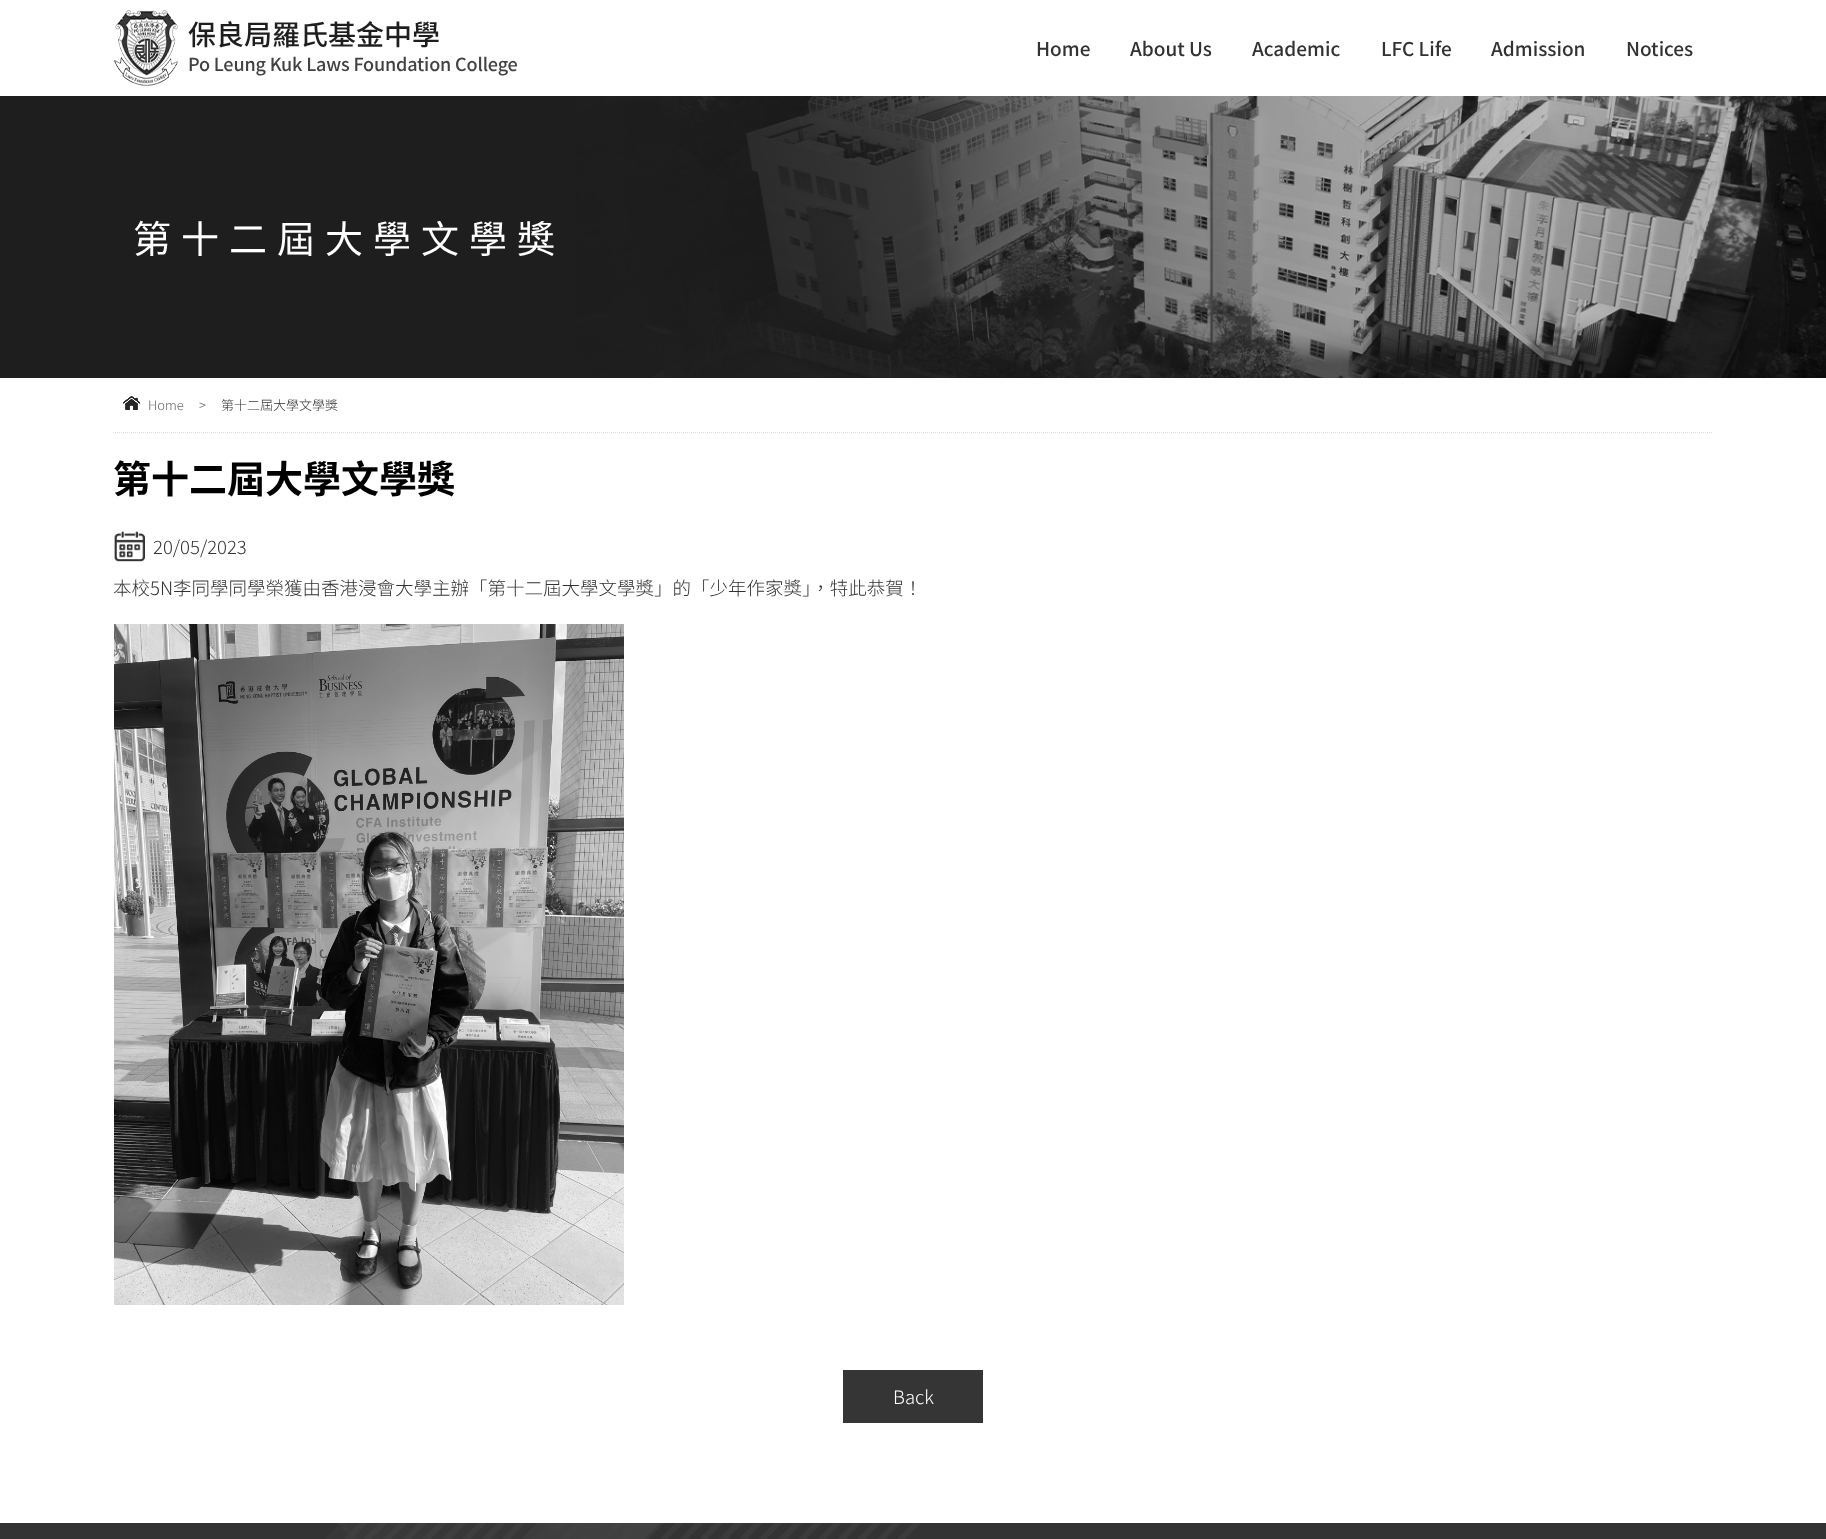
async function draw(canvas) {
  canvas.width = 1826;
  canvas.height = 1539;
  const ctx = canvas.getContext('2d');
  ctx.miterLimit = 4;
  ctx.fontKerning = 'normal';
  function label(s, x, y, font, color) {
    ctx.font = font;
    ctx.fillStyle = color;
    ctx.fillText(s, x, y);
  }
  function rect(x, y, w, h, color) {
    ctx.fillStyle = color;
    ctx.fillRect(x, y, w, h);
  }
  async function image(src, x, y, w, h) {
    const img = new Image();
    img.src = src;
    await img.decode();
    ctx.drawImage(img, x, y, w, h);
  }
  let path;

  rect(0, 0, 1826, 1539, '#fff');
  await image('assets/img1.png', 114, 10, 64, 76);
  label('保良局羅氏基金中學', 188, 45, '500 28px Noto Sans TC', '#1e1e1e');
  ctx.letterSpacing = '-0.15px';
  label('Po Leung Kuk Laws Foundation College', 188, 71, '500 18px Noto Sans TC', '#424242');
  ctx.letterSpacing = '0px';
  label('Home', 1036, 56, '500 19px Noto Sans TC', '#323232');
  label('About Us', 1130, 56, '500 19px Noto Sans TC', '#323232');
  label('Academic', 1252, 56, '500 19px Noto Sans TC', '#323232');
  label('LFC Life', 1381, 56, '500 19px Noto Sans TC', '#323232');
  label('Admission', 1491, 56, '500 19px Noto Sans TC', '#323232');
  label('Notices', 1626, 56, '500 19px Noto Sans TC', '#323232');
  await image('assets/img2.png', 0, 96, 1826, 282);
  ctx.letterSpacing = '10px';
  label('第十二屆大學文學獎', 133, 253, '38px Noto Sans TC', '#fff');
  path = new Path2D('M113 432.5H1713');
  ctx.strokeStyle = '#ddd';
  ctx.setLineDash([1, 1]);
  ctx.stroke(path);
  await image('assets/img3.png', 123, 396, 17, 14);
  ctx.letterSpacing = '0px';
  label('Home', 148, 410, '300 13px Noto Sans TC', '#666');
  label('>', 199, 410, '300 13px Noto Sans TC', '#666');
  label('第十二屆大學文學獎', 221, 410, '300 13px Noto Sans TC', '#323232');
  label('第十二屆大學文學獎', 113, 493, 'bold 38px Noto Sans TC', '#000');
  await image('assets/img4.png', 114, 531, 31, 31);
  label('20/05/2023', 153, 554, '300 18.5px Noto Sans TC', '#323232');
  label('本校5N李同學同學榮獲由香港浸會大學主辦「第十二屆大學文學獎」的「少年作家獎」，特此恭賀！', 113, 595, '300 18.5px Noto Sans TC', '#323232');
  await image('assets/img5.png', 114, 624, 510, 681);
  rect(843, 1370, 140, 53, '#353535');
  label('Back', 893, 1404, '300 18.5px Noto Sans TC', '#fff');
  rect(0, 1523, 1826, 16, '#333');
  await image('assets/img6.png', 325, 1523, 595, 16);
}

draw(document.querySelector('canvas'));
